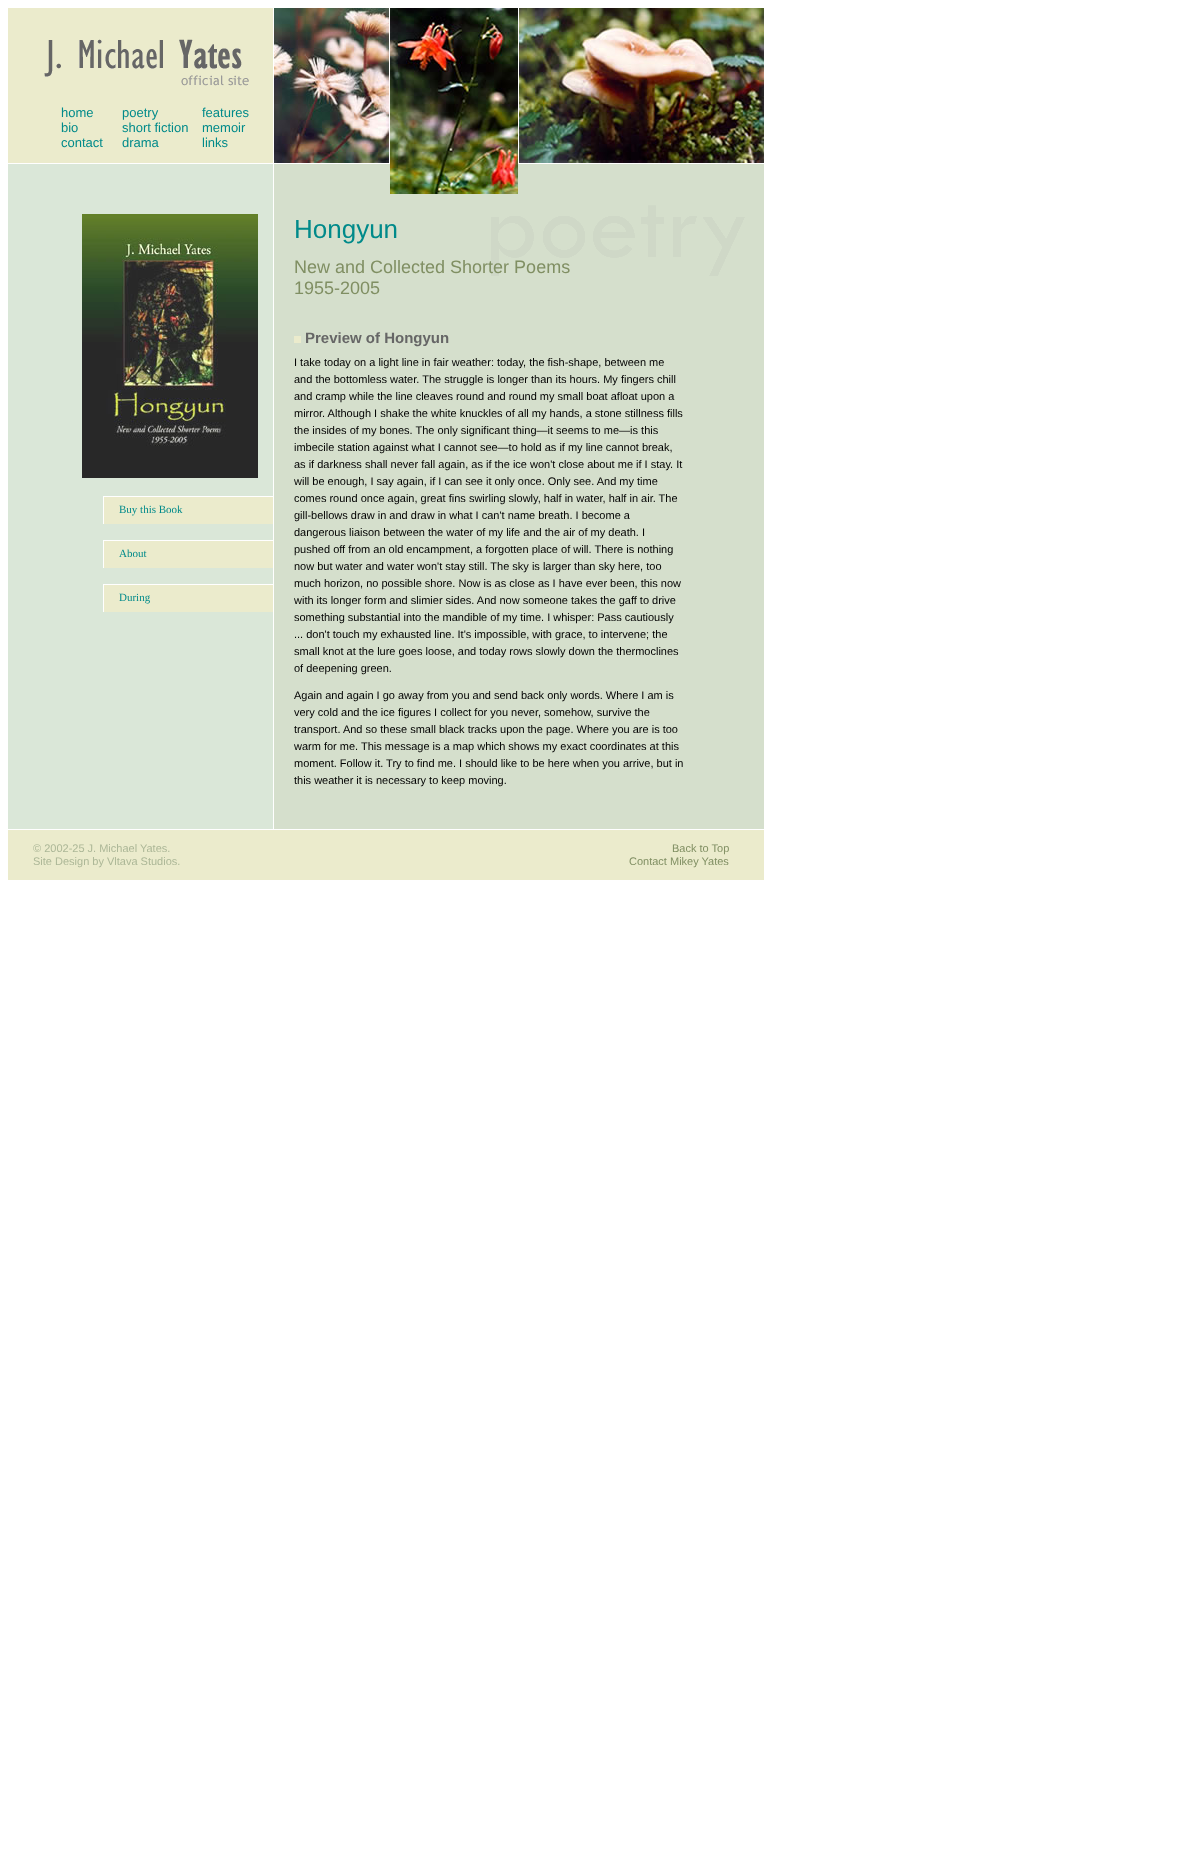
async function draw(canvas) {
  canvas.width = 1198;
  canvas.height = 1873;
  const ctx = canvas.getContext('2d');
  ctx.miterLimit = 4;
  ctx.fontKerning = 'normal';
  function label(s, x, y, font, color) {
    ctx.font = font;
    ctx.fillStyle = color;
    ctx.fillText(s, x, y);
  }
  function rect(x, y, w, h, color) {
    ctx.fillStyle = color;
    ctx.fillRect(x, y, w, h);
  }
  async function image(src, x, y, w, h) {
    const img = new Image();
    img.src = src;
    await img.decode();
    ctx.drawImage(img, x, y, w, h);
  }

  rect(0, 0, 1198, 1873, '#fff');
  rect(8, 8, 265, 155, '#ebebcc');
  await image('assets/img1.png', 44, 39, 205, 47);
  label('home', 61, 117, '13px Liberation Sans', '#008a8a');
  label('bio', 61, 132, '13px Liberation Sans', '#008a8a');
  label('contact', 61, 147, '13px Liberation Sans', '#008a8a');
  label('poetry', 122, 117, '13px Liberation Sans', '#008a8a');
  label('short fiction', 122, 132, '13px Liberation Sans', '#008a8a');
  label('drama', 122, 147, '13px Liberation Sans', '#008a8a');
  label('features', 202, 117, '13px Liberation Sans', '#008a8a');
  label('memoir', 202, 132, '13px Liberation Sans', '#008a8a');
  label('links', 202, 147, '13px Liberation Sans', '#008a8a');
  await image('assets/img2.png', 274, 8, 115, 155);
  rect(274, 164, 490, 665, '#d5dfcc');
  await image('assets/img3.png', 390, 8, 128, 186);
  await image('assets/img4.png', 519, 8, 245, 155);
  rect(8, 164, 265, 665, '#dae7d8');
  await image('assets/img5.png', 82, 214, 176, 264);
  rect(104, 497, 169, 27, '#ebebcc');
  rect(103, 496, 170, 1, '#fff');
  rect(103, 496, 1, 28, '#fff');
  label('Buy this Book', 119, 513, '11px Liberation Serif', '#008a8a');
  rect(104, 541, 169, 27, '#ebebcc');
  rect(103, 540, 170, 1, '#fff');
  rect(103, 540, 1, 28, '#fff');
  label('About', 119, 557, '11px Liberation Serif', '#008a8a');
  rect(104, 585, 169, 27, '#ebebcc');
  rect(103, 584, 170, 1, '#fff');
  rect(103, 584, 1, 28, '#fff');
  label('During', 119, 601, '11px Liberation Serif', '#008a8a');
  await image('assets/img6.png', 491, 205, 254, 71);
  label('Hongyun', 294, 238, '26px Liberation Sans', '#008a8a');
  label('New and Collected Shorter Poems', 294, 273, '18px Liberation Sans', '#808f63');
  label('1955-2005', 294, 294, '18px Liberation Sans', '#808f63');
  rect(294, 336, 7, 7, '#ebebcc');
  label('Preview of Hongyun', 305, 343, 'bold 15px Liberation Sans', '#666');
  label('I take today on a light line in fair weather: today, the fish-shape, between me', 294, 366, '11px Liberation Sans', '#000');
  label('and the bottomless water. The struggle is longer than its hours. My fingers chill', 294, 383, '11px Liberation Sans', '#000');
  label('and cramp while the line cleaves round and round my small boat afloat upon a', 294, 400, '11px Liberation Sans', '#000');
  label('mirror. Although I shake the white knuckles of all my hands, a stone stillness fills', 294, 417, '11px Liberation Sans', '#000');
  label('the insides of my bones. The only significant thing—it seems to me—is this', 294, 434, '11px Liberation Sans', '#000');
  label('imbecile station against what I cannot see—to hold as if my line cannot break,', 294, 451, '11px Liberation Sans', '#000');
  label('as if darkness shall never fall again, as if the ice won\'t close about me if I stay. It', 294, 468, '11px Liberation Sans', '#000');
  label('will be enough, I say again, if I can see it only once. Only see. And my time', 294, 485, '11px Liberation Sans', '#000');
  label('comes round once again, great fins swirling slowly, half in water, half in air. The', 294, 502, '11px Liberation Sans', '#000');
  label('gill-bellows draw in and draw in what I can\'t name breath. I become a', 294, 519, '11px Liberation Sans', '#000');
  label('dangerous liaison between the water of my life and the air of my death. I', 294, 536, '11px Liberation Sans', '#000');
  label('pushed off from an old encampment, a forgotten place of will. There is nothing', 294, 553, '11px Liberation Sans', '#000');
  label('now but water and water won\'t stay still. The sky is larger than sky here, too', 294, 570, '11px Liberation Sans', '#000');
  label('much horizon, no possible shore. Now is as close as I have ever been, this now', 294, 587, '11px Liberation Sans', '#000');
  label('with its longer form and slimier sides. And now someone takes the gaff to drive', 294, 604, '11px Liberation Sans', '#000');
  label('something substantial into the mandible of my time. I whisper: Pass cautiously', 294, 621, '11px Liberation Sans', '#000');
  label('... don\'t touch my exhausted line. It\'s impossible, with grace, to intervene; the', 294, 638, '11px Liberation Sans', '#000');
  label('small knot at the lure goes loose, and today rows slowly down the thermoclines', 294, 655, '11px Liberation Sans', '#000');
  label('of deepening green.', 294, 672, '11px Liberation Sans', '#000');
  label('Again and again I go away from you and send back only words. Where I am is', 294, 699, '11px Liberation Sans', '#000');
  label('very cold and the ice figures I collect for you never, somehow, survive the', 294, 716, '11px Liberation Sans', '#000');
  label('transport. And so these small black tracks upon the page. Where you are is too', 294, 733, '11px Liberation Sans', '#000');
  label('warm for me. This message is a map which shows my exact coordinates at this', 294, 750, '11px Liberation Sans', '#000');
  label('moment. Follow it. Try to find me. I should like to be here when you arrive, but in', 294, 767, '11px Liberation Sans', '#000');
  label('this weather it is necessary to keep moving.', 294, 784, '11px Liberation Sans', '#000');
  rect(8, 830, 756, 50, '#ebebcc');
  label('© 2002-25 J. Michael Yates.', 33, 852, '11px Liberation Sans', '#acb797');
  label('Site Design by Vltava Studios.', 33, 865, '11px Liberation Sans', '#acb797');
  label('Back to Top', 672, 852, '11px Liberation Sans', '#808f63');
  label('Contact Mikey Yates', 629, 865, '11px Liberation Sans', '#808f63');
}

draw(document.querySelector('canvas'));
